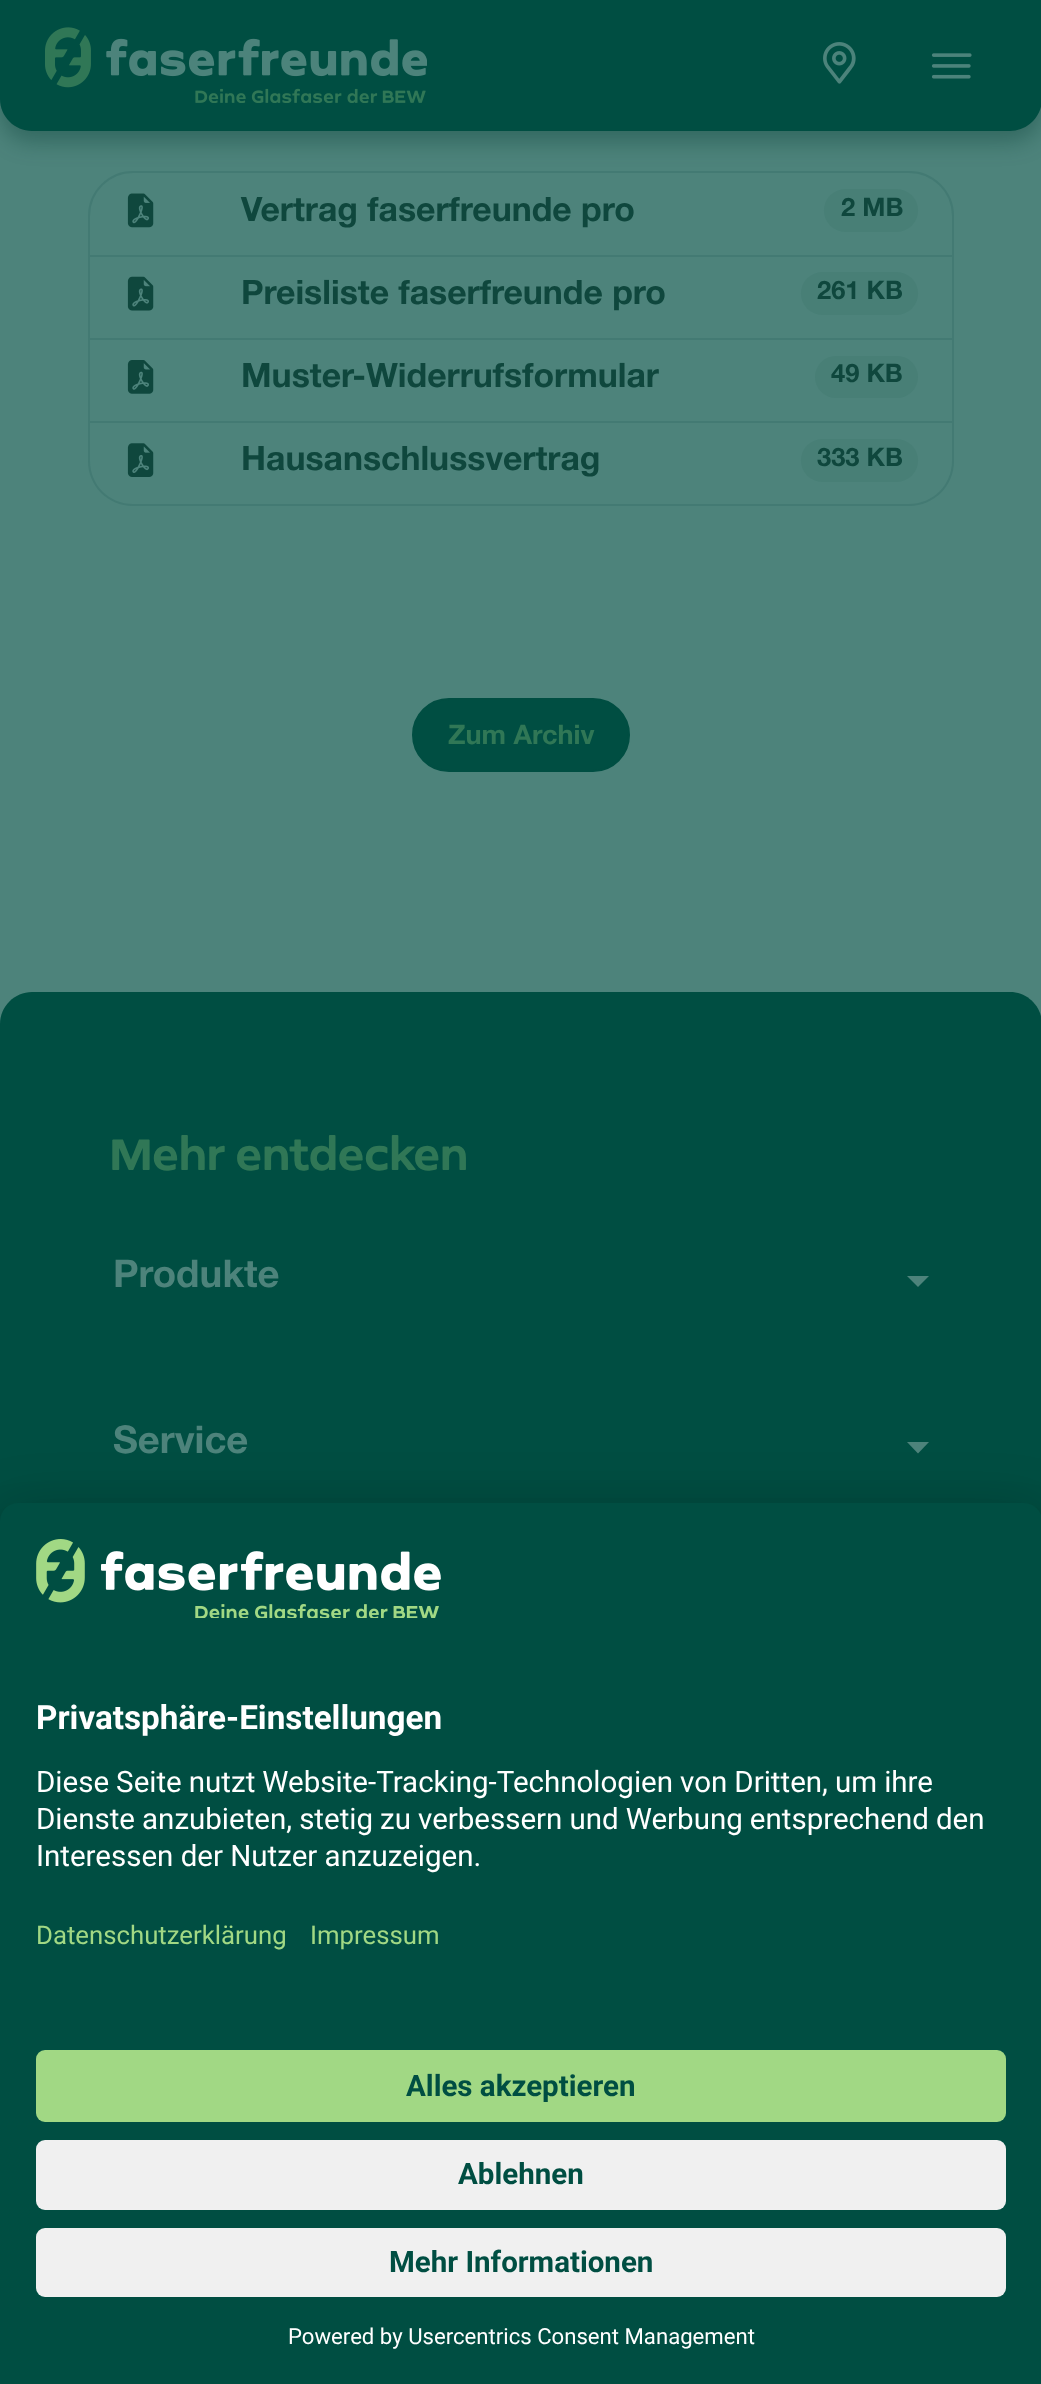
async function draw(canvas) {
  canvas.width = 1041;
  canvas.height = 2384;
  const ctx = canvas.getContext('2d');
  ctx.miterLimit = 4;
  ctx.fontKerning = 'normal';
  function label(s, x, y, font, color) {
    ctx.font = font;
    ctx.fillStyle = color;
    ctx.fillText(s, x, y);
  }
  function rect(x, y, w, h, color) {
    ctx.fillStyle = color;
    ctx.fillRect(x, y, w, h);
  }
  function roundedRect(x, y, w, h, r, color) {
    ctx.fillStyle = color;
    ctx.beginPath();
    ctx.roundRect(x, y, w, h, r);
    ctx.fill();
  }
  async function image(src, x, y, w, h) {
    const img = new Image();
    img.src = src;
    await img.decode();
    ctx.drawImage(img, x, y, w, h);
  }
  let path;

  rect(0, 0, 1041, 2384, '#4d837b');
  ctx.beginPath();
  ctx.roundRect(89, 172, 864, 84, [44, 44, 0, 0]);
  ctx.strokeStyle = '#437a73';
  ctx.lineWidth = 2;
  ctx.stroke();
  ctx.fillStyle = '#00372e59';
  ctx.filter = 'blur(11px)';
  ctx.beginPath();
  ctx.roundRect(0, 11, 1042, 131, 32);
  ctx.fill();
  ctx.filter = 'none';
  ctx.fillStyle = '#004e42';
  path = new Path2D('M0 0H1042V99C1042 116.5 1027.5 131 1010 131H32C14.5 131 0 116.5 0 99Z');
  ctx.fill(path);
  await image('assets/img1.png', 45, 27, 382, 76);
  await image('assets/img2.png', 823, 42, 33, 42);
  await image('assets/img3.png', 931, 53, 41, 26);
  await image('assets/img4.png', 127, 193, 27, 35);
  label('Vertrag faserfreunde pro', 241, 221, 'bold 33.75px Helvetica Neue', '#0f473d');
  roundedRect(824, 189, 94, 43, 21.5, '#487f76');
  label('2 MB', 841, 216, 'bold 25.5px Helvetica Neue', '#0f473d');
  rect(952, 257, 2, 166, '#437a73');
  rect(88, 338, 866, 2, '#437a73');
  rect(88, 257, 2, 83, '#437a73');
  await image('assets/img5.png', 127, 276, 27, 35);
  label('Preisliste faserfreunde pro', 241, 304, 'bold 33.75px Helvetica Neue', '#0f473d');
  roundedRect(801, 272, 117, 43, 21.5, '#487f76');
  label('261 KB', 817, 299, 'bold 25.5px Helvetica Neue', '#0f473d');
  rect(88, 421, 866, 2, '#437a73');
  rect(88, 340, 2, 83, '#437a73');
  await image('assets/img6.png', 127, 360, 27, 34);
  label('Muster-Widerrufsformular', 241, 387, 'bold 33.75px Helvetica Neue', '#0f473d');
  roundedRect(815, 356, 103, 42, 21, '#487f76');
  label('49 KB', 831, 382, 'bold 25.5px Helvetica Neue', '#0f473d');
  ctx.fillStyle = '#437a73';
  path = new Path2D('M88 423H954V461C954 486 934 506 909 506H133C108 506 88 486 88 461ZM90 423H952V461C952 485 933 504 909 504H133C109 504 90 485 90 461Z');
  ctx.fill(path, 'evenodd');
  await image('assets/img7.png', 127, 443, 27, 34);
  label('Hausanschlussvertrag', 241, 470, 'bold 33.75px Helvetica Neue', '#0f473d');
  roundedRect(801, 439, 117, 43, 21.5, '#487f76');
  label('333 KB', 817, 466, 'bold 25.5px Helvetica Neue', '#0f473d');
  ctx.fillStyle = '#004e42';
  ctx.beginPath();
  ctx.roundRect(413, 699, 216, 72, 36);
  ctx.fill();
  ctx.strokeStyle = '#004e42';
  ctx.stroke();
  label('Zum Archiv', 448, 744, 'bold 27px Helvetica Neue', '#307756');
  ctx.fillStyle = '#004e42';
  path = new Path2D('M32 992H1010C1027.5 992 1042 1006.5 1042 1024V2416H0V1024C0 1006.5 14.5 992 32 992Z');
  ctx.fill(path);
  label('Mehr entdecken', 110, 1170, 'bold 43.75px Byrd', '#307756');
  label('Produkte', 113, 1287, 'bold 38.25px Helvetica Neue', '#4d837b');
  path = new Path2D('M907 1276H929L918 1287Z');
  ctx.fill(path);
  label('Service', 113, 1453, 'bold 38.25px Helvetica Neue', '#4d837b');
  path = new Path2D('M907 1442H929L918 1453.5Z');
  ctx.fill(path);
  ctx.fillStyle = '#0000004d';
  ctx.filter = 'blur(31.5px)';
  ctx.beginPath();
  ctx.roundRect(0, 1548, 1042, 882, 18);
  ctx.fill();
  ctx.filter = 'none';
  ctx.fillStyle = '#00000038';
  ctx.filter = 'blur(29px)';
  ctx.beginPath();
  ctx.roundRect(0, 1514, 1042, 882, 18);
  ctx.fill();
  ctx.filter = 'none';
  ctx.fillStyle = '#004e42';
  path = new Path2D('M18 1503H1024C1034 1503 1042 1511 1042 1521V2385H0V1521C0 1511 8 1503 18 1503Z');
  ctx.fill(path);
  await image('assets/img8.png', 36, 1539, 405, 79);
  label('Privatsphäre-Einstellungen', 36, 1729, 'bold 33.25px Roboto', '#fff');
  ctx.wordSpacing = '-0.25px';
  label('Diese Seite nutzt Website-Tracking-Technologien von Dritten, um ihre', 36, 1792, '29.5px Roboto', '#fff');
  label('Dienste anzubieten, stetig zu verbessern und Werbung entsprechend den', 36, 1829, '29.5px Roboto', '#fff');
  ctx.wordSpacing = '0px';
  label('Interessen der Nutzer anzuzeigen.', 36, 1866, '29.5px Roboto', '#fff');
  label('Datenschutzerklärung', 36, 1944, '25.75px Roboto', '#a1d884');
  label('Impressum', 310, 1944, '25.75px Roboto', '#a1d884');
  roundedRect(36, 2050, 970, 72, 9, '#a1d884');
  label('Alles akzeptieren', 406, 2096, 'bold 29.5px Roboto', '#004e42');
  roundedRect(36, 2140, 970, 70, 9, '#f0f0f0');
  label('Ablehnen', 458, 2184, 'bold 29.5px Roboto', '#004e42');
  roundedRect(36, 2228, 970, 69, 9, '#f0f0f0');
  label('Mehr Informationen', 389, 2272, 'bold 29.5px Roboto', '#004e42');
  label('Powered by Usercentrics Consent Management', 288, 2344, '22.15px Roboto', '#fff');
}

draw(document.querySelector('canvas'));
